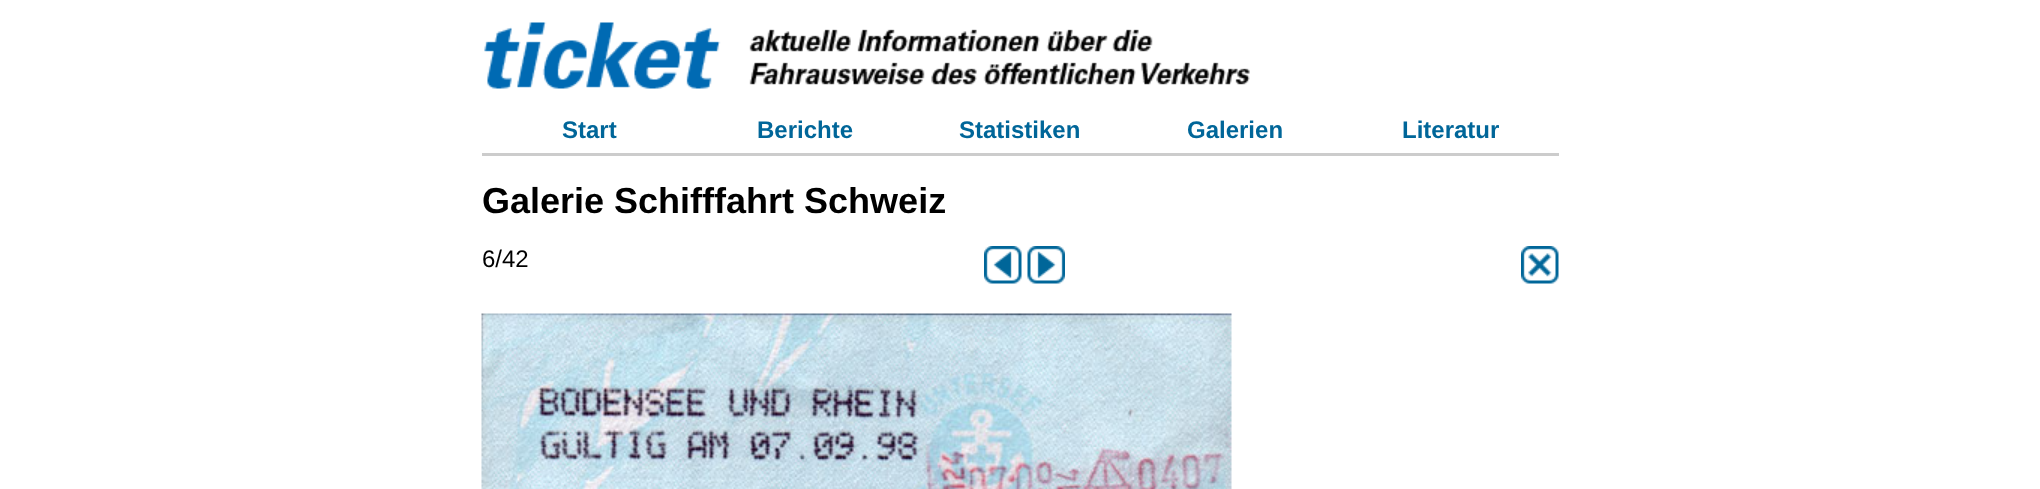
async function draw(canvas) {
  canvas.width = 2040;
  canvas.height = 489;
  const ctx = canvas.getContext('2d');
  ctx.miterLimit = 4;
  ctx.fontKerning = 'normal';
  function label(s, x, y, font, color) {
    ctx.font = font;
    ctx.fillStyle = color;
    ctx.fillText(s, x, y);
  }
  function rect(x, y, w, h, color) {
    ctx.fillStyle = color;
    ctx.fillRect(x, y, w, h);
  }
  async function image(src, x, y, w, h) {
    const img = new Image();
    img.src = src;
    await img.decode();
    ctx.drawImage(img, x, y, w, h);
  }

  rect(0, 0, 2040, 489, '#fff');
  await image('assets/img1.png', 484, 22, 766, 67);
  rect(482, 153, 1077, 3, '#ccc');
  label('Start', 562, 138, 'bold 24px Liberation Sans', '#069');
  label('Berichte', 757, 138, 'bold 24px Liberation Sans', '#069');
  label('Statistiken', 959, 138, 'bold 24px Liberation Sans', '#069');
  label('Galerien', 1187, 138, 'bold 24px Liberation Sans', '#069');
  label('Literatur', 1402, 138, 'bold 24px Liberation Sans', '#069');
  label('Galerie Schifffahrt Schweiz', 482, 213, 'bold 36px Liberation Sans', '#000');
  label('6/42', 482, 267, '24px Liberation Sans', '#000');
  await image('assets/img2.png', 984, 246, 38, 38);
  await image('assets/img3.png', 1027, 246, 38, 38);
  await image('assets/img4.png', 1521, 246, 38, 38);
  await image('assets/img5.png', 481, 313, 751, 176);
}

draw(document.querySelector('canvas'));
